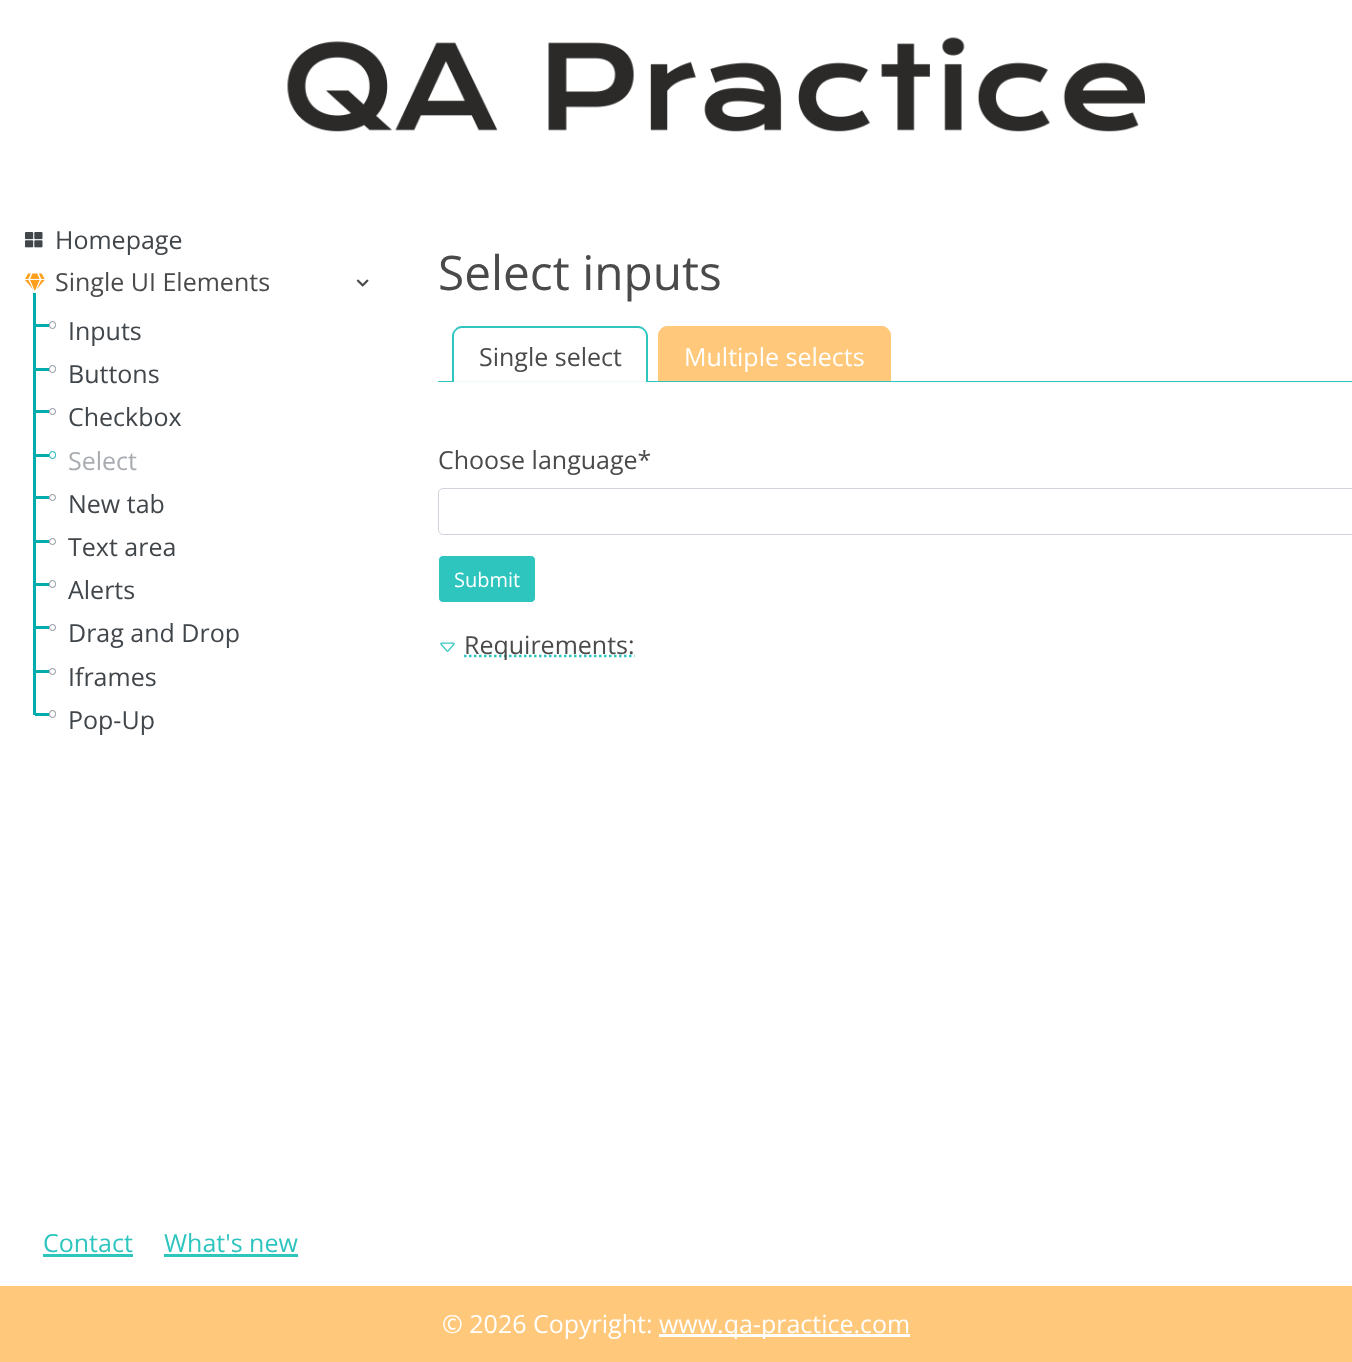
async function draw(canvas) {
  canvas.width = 1352;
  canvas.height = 1362;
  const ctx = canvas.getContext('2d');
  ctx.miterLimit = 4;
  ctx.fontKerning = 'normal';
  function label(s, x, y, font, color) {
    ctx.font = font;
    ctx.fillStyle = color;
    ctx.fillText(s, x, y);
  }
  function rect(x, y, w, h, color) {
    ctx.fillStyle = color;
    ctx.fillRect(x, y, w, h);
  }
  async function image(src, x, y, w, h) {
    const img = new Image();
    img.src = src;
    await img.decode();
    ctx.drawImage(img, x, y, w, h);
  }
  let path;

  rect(0, 0, 1352, 1362, '#fff');
  await image('assets/img1.png', 287, 37, 858, 95);
  await image('assets/img2.png', 25, 232, 18, 16);
  label('Homepage', 55, 249, '25px Open Sans', '#41464b');
  await image('assets/img3.png', 25, 273, 20, 18);
  label('Single UI Elements', 55, 291, '25px Open Sans', '#4a4a4a');
  await image('assets/img4.png', 356, 279, 13, 8);
  rect(33, 293, 3, 422, '#00acac');
  ctx.beginPath();
  ctx.roundRect(49.5, 321.5, 6, 7, 3);
  ctx.strokeStyle = '#889097';
  ctx.stroke();
  rect(35, 324, 14, 3, '#00acac');
  label('Inputs', 68, 340, '25px Open Sans', '#41464b');
  ctx.beginPath();
  ctx.roundRect(49.5, 365.5, 6, 7, 3);
  ctx.stroke();
  rect(35, 368, 14, 3, '#00acac');
  label('Buttons', 68, 383, '25px Open Sans', '#41464b');
  ctx.beginPath();
  ctx.arc(52.5, 411.5, 3, 0, 2 * Math.PI);
  ctx.stroke();
  rect(35, 410, 14, 3, '#00acac');
  label('Checkbox', 68, 426, '25px Open Sans', '#41464b');
  ctx.beginPath();
  ctx.roundRect(49.5, 451.5, 6, 7, 3);
  ctx.strokeStyle = '#00acac';
  ctx.stroke();
  rect(35, 454, 14, 3, '#00acac');
  label('Select', 68, 470, '25px Open Sans', '#a8acb1');
  ctx.beginPath();
  ctx.arc(52.5, 497.5, 3, 0, 2 * Math.PI);
  ctx.strokeStyle = '#889097';
  ctx.stroke();
  rect(35, 496, 14, 3, '#00acac');
  label('New tab', 68, 513, '25px Open Sans', '#41464b');
  ctx.beginPath();
  ctx.arc(52.5, 541.5, 3, 0, 2 * Math.PI);
  ctx.stroke();
  rect(35, 540, 14, 3, '#00acac');
  label('Text area', 68, 556, '25px Open Sans', '#41464b');
  ctx.beginPath();
  ctx.roundRect(49.5, 580.5, 6, 7, 3);
  ctx.stroke();
  rect(35, 583, 14, 3, '#00acac');
  label('Alerts', 68, 599, '25px Open Sans', '#41464b');
  ctx.beginPath();
  ctx.arc(52.5, 627.5, 3, 0, 2 * Math.PI);
  ctx.stroke();
  rect(35, 626, 14, 3, '#00acac');
  label('Drag and Drop', 68, 642, '25px Open Sans', '#41464b');
  ctx.beginPath();
  ctx.arc(52.5, 671.5, 3, 0, 2 * Math.PI);
  ctx.stroke();
  rect(35, 670, 14, 3, '#00acac');
  label('Iframes', 68, 686, '25px Open Sans', '#41464b');
  ctx.beginPath();
  ctx.roundRect(49.5, 710.5, 6, 7, 3);
  ctx.stroke();
  rect(35, 713, 14, 3, '#00acac');
  label('Pop-Up', 68, 729, '25px Open Sans', '#41464b');
  label('Select inputs', 438, 290, '47.75px Open Sans', '#4a4a4a');
  rect(438, 381, 914, 1, '#2ec5bf');
  ctx.fillStyle = '#ffffffe8';
  ctx.beginPath();
  ctx.roundRect(453, 326, 195, 57, [10, 10, 0, 0]);
  ctx.fill();
  ctx.fillStyle = '#2ec5bf';
  path = new Path2D('M462 326H638C643 326 648 331 648 336V382H452V336C452 331 457 326 462 326ZM462 328H638C642 328 646 331 646 336V382H454V336C454 331 458 328 462 328Z');
  ctx.fill(path, 'evenodd');
  label('Single select', 479, 366, '25px Open Sans', '#4a4a4a');
  ctx.fillStyle = '#ffc87b';
  ctx.beginPath();
  ctx.roundRect(658, 326, 233, 55, [10, 10, 0, 0]);
  ctx.fill();
  path = new Path2D('M668 326H881C887 326 891 331 891 336V381H658V336C658 331 662 326 668 326ZM668 328H881C886 328 890 331 890 336V381H659V336C659 331 663 328 668 328Z');
  ctx.fill(path, 'evenodd');
  label('Multiple selects', 684, 366, '25px Open Sans', '#fff');
  label('Choose language*', 438, 469, '25px Open Sans', '#4a4a4a');
  ctx.beginPath();
  ctx.roundRect(438.5, 488.5, 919, 46, 4.5);
  ctx.strokeStyle = '#ced4da';
  ctx.stroke();
  ctx.fillStyle = '#2ec5bf';
  ctx.beginPath();
  ctx.roundRect(438.5, 555.5, 97, 47, 4.5);
  ctx.fill();
  ctx.strokeStyle = '#fff';
  ctx.stroke();
  label('Submit', 454, 587, '20px Open Sans', '#fff');
  await image('assets/img5.png', 440, 642, 15, 10);
  path = new Path2D('M464 656H634.5');
  ctx.strokeStyle = '#2ec5bf';
  ctx.lineWidth = 2.5;
  ctx.setLineDash([2.5, 2.5]);
  ctx.stroke(path);
  label('Requirements:', 464, 654, '25px Open Sans', '#4a4a4a');
  label('Contact', 43, 1252, '25px Open Sans', '#2ec5bf');
  rect(43, 1254, 90, 3, '#2ec5bf');
  label('What\'s new', 164, 1252, '25px Open Sans', '#2ec5bf');
  rect(164, 1254, 134, 3, '#2ec5bf');
  rect(0, 1286, 1352, 76, '#ffc87b');
  label('© 2026 Copyright:', 442, 1333, '25px Open Sans', '#fff');
  rect(659, 1334, 251, 3, '#fff');
  label('www.qa-practice.com', 659, 1333, '25px Open Sans', '#fff');
}

draw(document.querySelector('canvas'));
